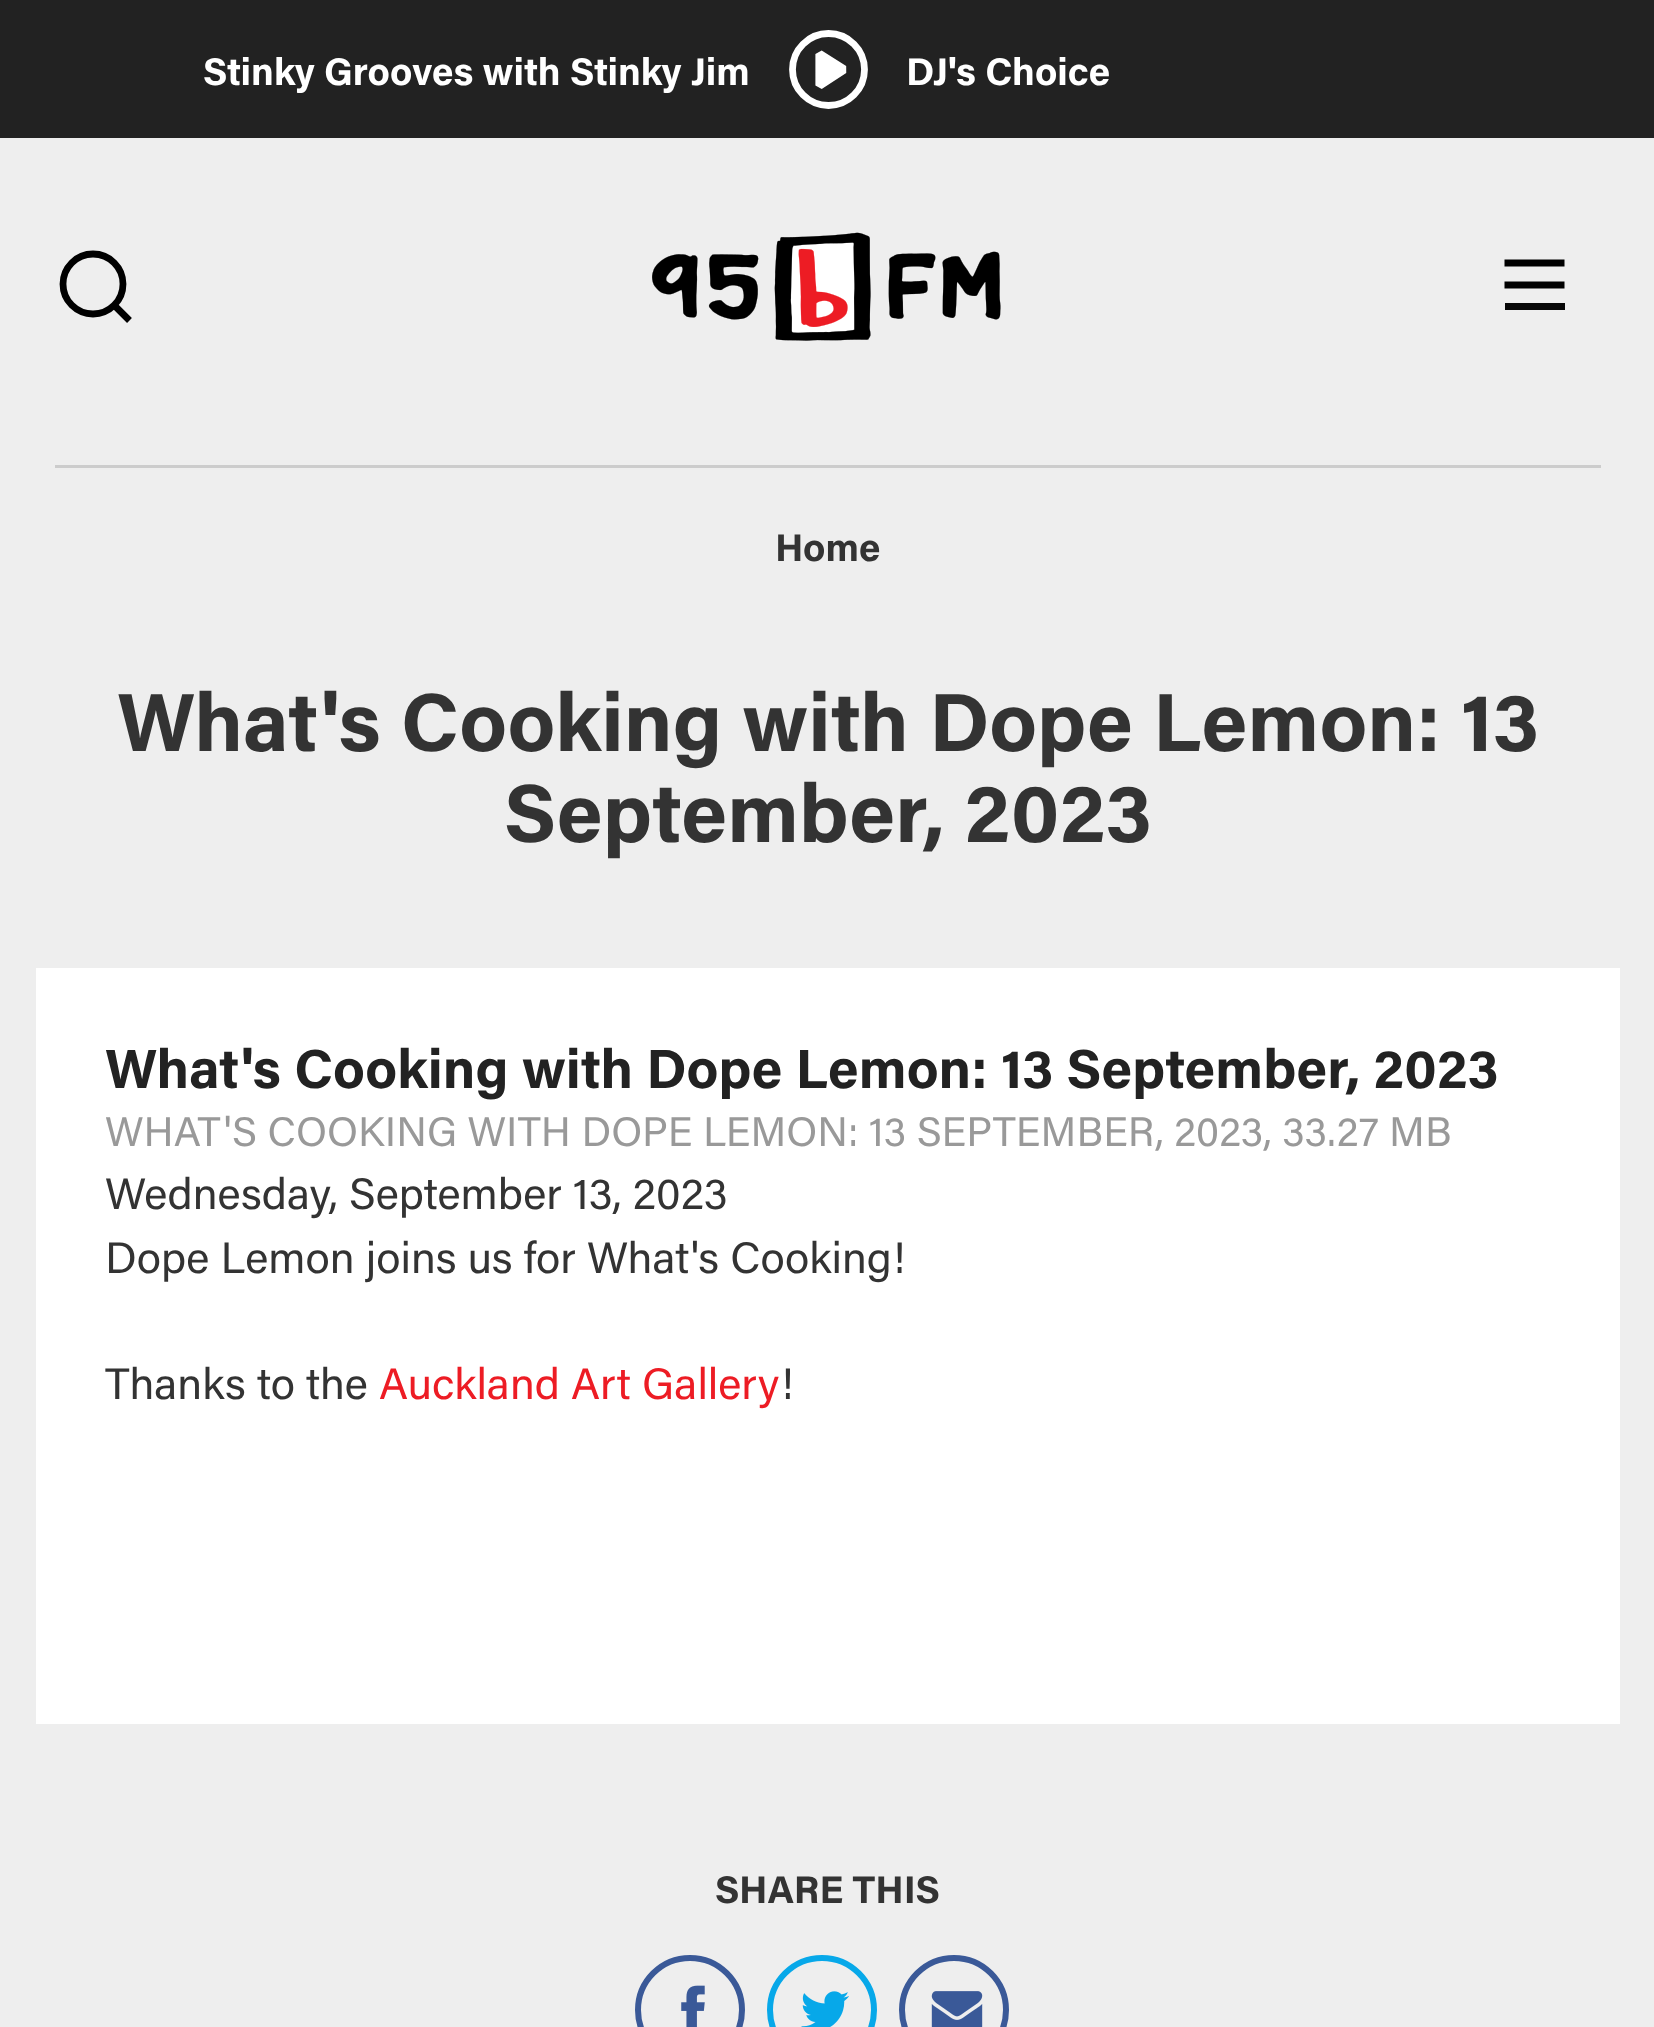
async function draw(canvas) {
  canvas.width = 1654;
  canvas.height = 2027;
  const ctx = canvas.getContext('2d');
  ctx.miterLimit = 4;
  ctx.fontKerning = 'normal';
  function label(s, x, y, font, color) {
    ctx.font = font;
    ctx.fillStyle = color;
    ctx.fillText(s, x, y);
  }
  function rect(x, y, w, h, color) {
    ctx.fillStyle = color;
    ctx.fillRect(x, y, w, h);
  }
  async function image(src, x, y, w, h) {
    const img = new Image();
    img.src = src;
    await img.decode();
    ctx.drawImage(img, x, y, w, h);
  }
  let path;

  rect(0, 0, 1654, 2027, '#222');
  label('Stinky Grooves with Stinky Jim', 203, 85, 'bold 38.5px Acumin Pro', '#fff');
  path = new Path2D('M819.5 54V85.5L844 69.5Z');
  ctx.fill(path);
  ctx.strokeStyle = '#fff';
  ctx.lineWidth = 8.2;
  ctx.lineCap = 'round';
  ctx.lineJoin = 'bevel';
  ctx.stroke(path);
  ctx.beginPath();
  ctx.arc(828.5, 69.5, 36, 0, 2 * Math.PI);
  ctx.lineWidth = 6.8;
  ctx.stroke();
  label('DJ\'s Choice', 906, 85, 'bold 38.5px Acumin Pro', '#fff');
  rect(0, 138, 1654, 1889, '#eee');
  ctx.beginPath();
  ctx.arc(93, 284, 30, 0, 2 * Math.PI);
  ctx.strokeStyle = '#000';
  ctx.stroke();
  path = new Path2D('M114.5 305.5L129.5 320.5');
  ctx.lineCap = 'butt';
  ctx.lineJoin = 'miter';
  ctx.stroke(path);
  await image('assets/img1.png', 652, 232, 349, 109);
  path = new Path2D('M1504.5 285H1564.5M1504.5 263H1564.5');
  ctx.stroke(path);
  rect(1505, 303, 60, 7, '#070707');
  rect(55, 465, 1546, 3, '#ccc');
  label('Home', 775, 561, 'bold 38.5px Acumin Pro', '#333');
  label('What\'s Cooking with Dope Lemon: 13', 117, 751, 'bold 82.5px Acumin Pro', '#333');
  label('September, 2023', 504, 842, 'bold 82.5px Acumin Pro', '#333');
  rect(36, 968, 1584, 756, '#fff');
  label('What\'s Cooking with Dope Lemon: 13 September, 2023', 105, 1088, 'bold 55px Acumin Pro', '#222');
  label('WHAT\'S COOKING WITH DOPE LEMON: 13 SEPTEMBER, 2023', 105, 1146, '41.25px Acumin Pro', '#999');
  label(', 33.27 MB', 1263, 1146, '41.25px Acumin Pro', '#999');
  label('Wednesday, September 13, 2023', 105, 1209, '44px Acumin Pro', '#333');
  label('Dope Lemon joins us for What\'s Cooking!', 105, 1273, '44px Acumin Pro', '#333');
  label('Thanks to the', 105, 1399, '44px Acumin Pro', '#333');
  label('Auckland Art Gallery', 379, 1399, '44px Acumin Pro', '#ed1c24');
  label('!', 780, 1399, '44px Acumin Pro', '#333');
  label('SHARE THIS', 715, 1903, 'bold 38.5px Acumin Pro', '#333');
  ctx.beginPath();
  ctx.arc(690, 2010, 52, 0, 2 * Math.PI);
  ctx.strokeStyle = '#3a5998';
  ctx.lineWidth = 6;
  ctx.stroke();
  await image('assets/img2.png', 681, 1985, 24, 42);
  ctx.beginPath();
  ctx.arc(822, 2010, 52, 0, 2 * Math.PI);
  ctx.strokeStyle = '#07a8e9';
  ctx.stroke();
  await image('assets/img3.png', 801, 1991, 48, 36);
  ctx.beginPath();
  ctx.arc(954, 2010, 52, 0, 2 * Math.PI);
  ctx.strokeStyle = '#3a5998';
  ctx.stroke();
  await image('assets/img4.png', 931, 1991, 52, 36);
}

draw(document.querySelector('canvas'));
